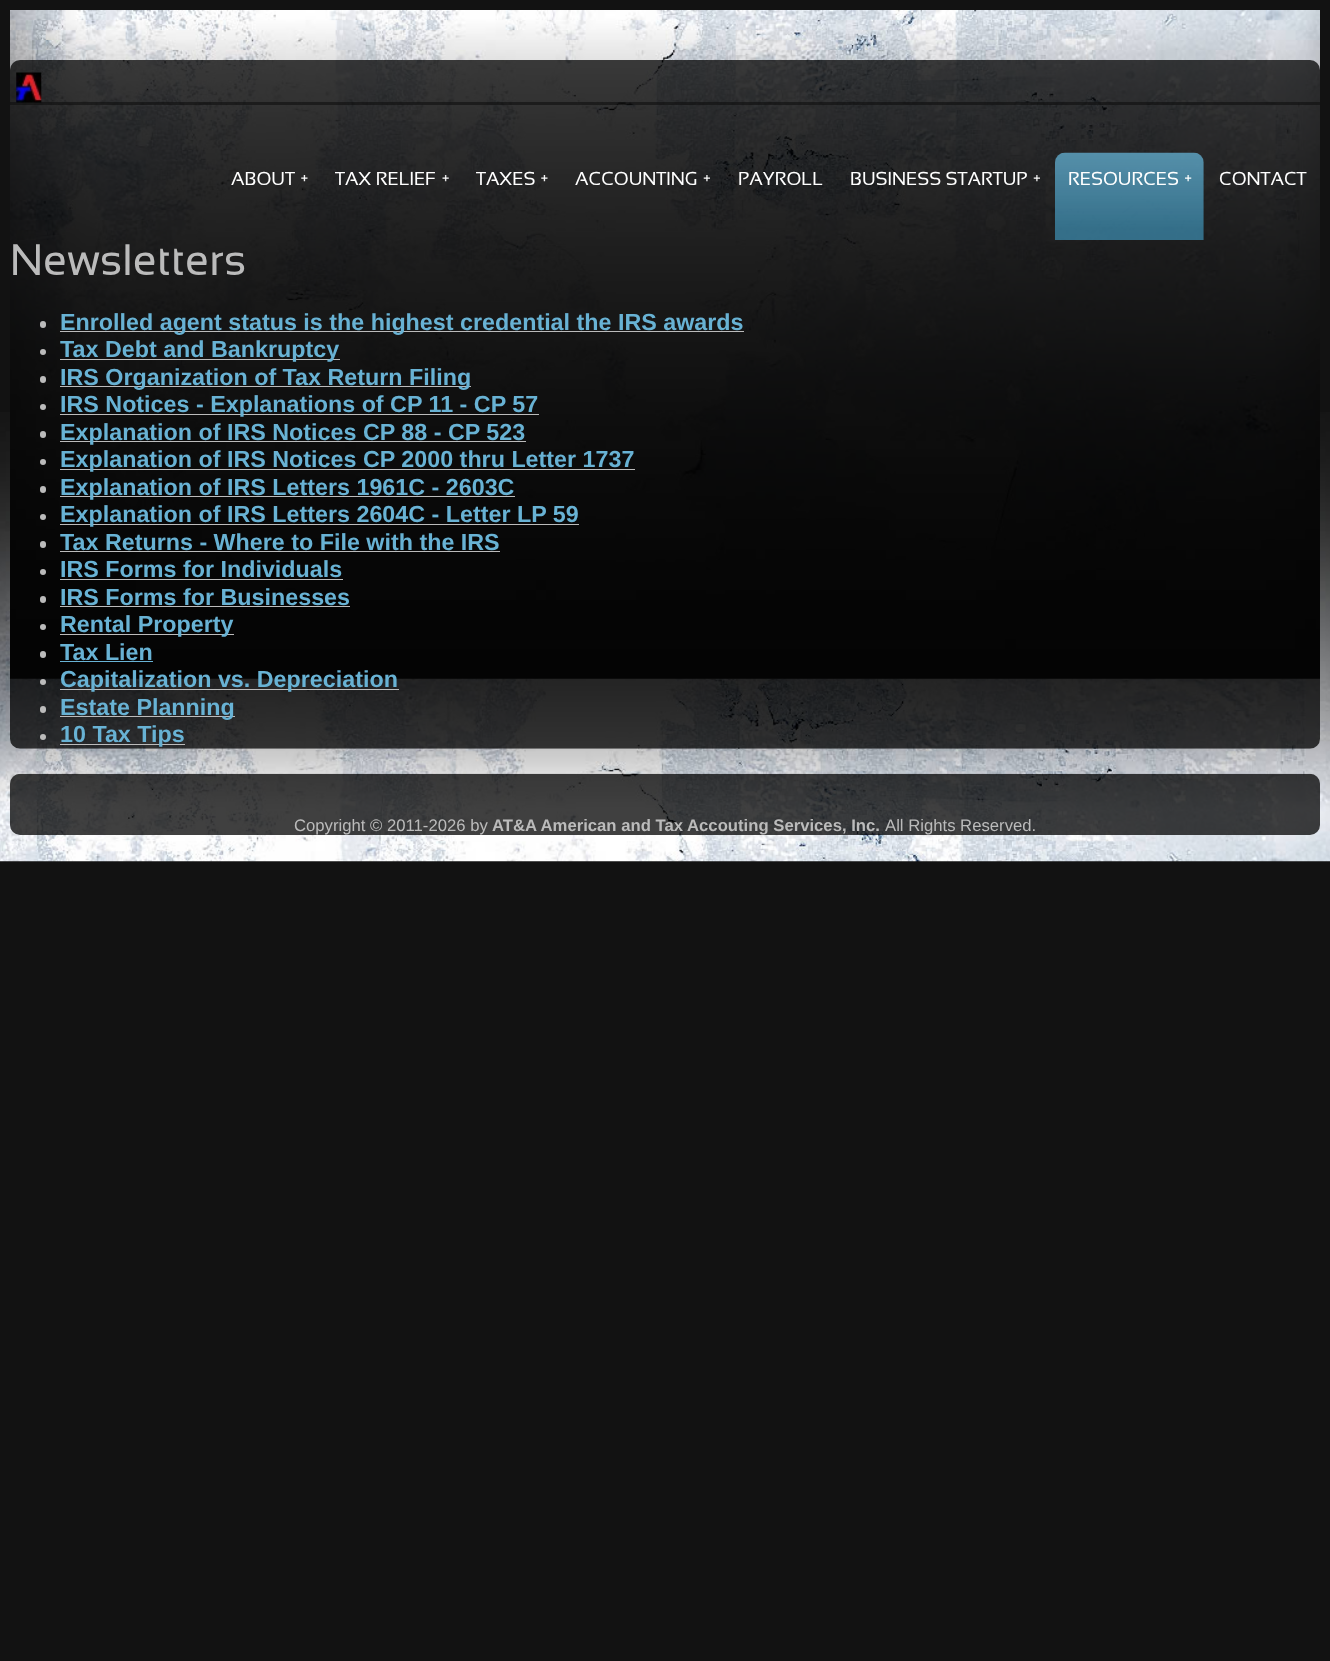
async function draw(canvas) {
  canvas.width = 1330;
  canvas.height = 1661;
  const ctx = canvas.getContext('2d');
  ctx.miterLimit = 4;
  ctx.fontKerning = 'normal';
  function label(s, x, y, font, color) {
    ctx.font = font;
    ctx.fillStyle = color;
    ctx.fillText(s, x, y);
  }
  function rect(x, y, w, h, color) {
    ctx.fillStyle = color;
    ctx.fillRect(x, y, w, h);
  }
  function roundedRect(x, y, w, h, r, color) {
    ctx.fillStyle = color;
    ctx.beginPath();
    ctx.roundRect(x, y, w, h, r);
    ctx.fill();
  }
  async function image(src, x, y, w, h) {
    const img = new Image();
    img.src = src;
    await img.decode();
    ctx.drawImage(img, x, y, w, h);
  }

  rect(0, 0, 1330, 1661, '#121212');
  await image('assets/img1.png', 0, 412, 1330, 450);
  await image('assets/img2.png', 10, 10, 1310, 669);
  await image('assets/img3.png', 10, 60, 1310, 689);
  rect(10, 102, 1310, 3, '#0e0e0e96');
  await image('assets/img4.png', 16, 72, 26, 31);
  label('ABOUT', 231, 185, '18.75px Sansation', '#fff');
  await image('assets/img5.png', 301, 175, 7, 7);
  label('TAX RELIEF', 335, 185, '18.75px Sansation', '#fff');
  await image('assets/img6.png', 442, 175, 7, 7);
  label('TAXES', 476, 185, '18.75px Sansation', '#fff');
  await image('assets/img7.png', 541, 175, 7, 7);
  label('ACCOUNTING', 575, 185, '18.75px Sansation', '#fff');
  await image('assets/img8.png', 703, 175, 7, 7);
  label('PAYROLL', 738, 185, '18.75px Sansation', '#fff');
  label('BUSINESS STARTUP', 850, 185, '18.75px Sansation', '#fff');
  await image('assets/img9.png', 1033, 175, 7, 7);
  await image('assets/img10.png', 1055, 152, 149, 88);
  label('RESOURCES', 1068, 185, '18.75px Sansation', '#fff');
  await image('assets/img11.png', 1185, 175, 7, 7);
  label('CONTACT', 1219, 185, '18.75px Sansation', '#fff');
  label('Newsletters', 10, 275, '44px Sansation', '#bbb');
  roundedRect(40, 321, 6, 7, 3, '#bbb');
  rect(60, 331, 684, 1, '#bbb');
  label('Enrolled agent status is the highest credential the IRS awards', 60, 330, 'bold 23.3px Liberation Sans', '#68b2d4');
  ctx.fillStyle = '#bbb';
  ctx.beginPath();
  ctx.arc(43, 352, 3, 0, 2 * Math.PI);
  ctx.fill();
  rect(60, 359, 280, 1, '#bbb');
  label('Tax Debt and Bankruptcy', 60, 357, 'bold 23.3px Liberation Sans', '#68b2d4');
  roundedRect(40, 376, 6, 7, 3, '#bbb');
  rect(60, 386, 411, 1, '#bbb');
  label('IRS Organization of Tax Return Filing', 60, 385, 'bold 23.3px Liberation Sans', '#68b2d4');
  ctx.fillStyle = '#bbb';
  ctx.beginPath();
  ctx.arc(43, 407, 3, 0, 2 * Math.PI);
  ctx.fill();
  rect(60, 414, 479, 1, '#bbb');
  label('IRS Notices - Explanations of CP 11 - CP 57', 60, 412, 'bold 23.3px Liberation Sans', '#68b2d4');
  roundedRect(40, 431, 6, 7, 3, '#bbb');
  rect(60, 441, 466, 1, '#bbb');
  label('Explanation of IRS Notices CP 88 - CP 523', 60, 440, 'bold 23.3px Liberation Sans', '#68b2d4');
  ctx.fillStyle = '#bbb';
  ctx.beginPath();
  ctx.arc(43, 462, 3, 0, 2 * Math.PI);
  ctx.fill();
  rect(60, 469, 575, 1, '#bbb');
  label('Explanation of IRS Notices CP 2000 thru Letter 1737', 60, 467, 'bold 23.3px Liberation Sans', '#68b2d4');
  roundedRect(40, 486, 6, 7, 3, '#bbb');
  rect(60, 496, 455, 1, '#bbb');
  label('Explanation of IRS Letters 1961C - 2603C', 60, 495, 'bold 23.3px Liberation Sans', '#68b2d4');
  ctx.fillStyle = '#bbb';
  ctx.beginPath();
  ctx.arc(43, 517, 3, 0, 2 * Math.PI);
  ctx.fill();
  rect(60, 524, 519, 1, '#bbb');
  label('Explanation of IRS Letters 2604C - Letter LP 59', 60, 522, 'bold 23.3px Liberation Sans', '#68b2d4');
  roundedRect(40, 541, 6, 7, 3, '#bbb');
  label('Tax Returns - Where to File with the IRS', 60, 550, 'bold 23.3px Liberation Sans', '#68b2d4');
  rect(60, 551, 440, 1, '#bbb');
  ctx.beginPath();
  ctx.arc(43, 572, 3, 0, 2 * Math.PI);
  ctx.fill();
  label('IRS Forms for Individuals', 60, 577, 'bold 23.3px Liberation Sans', '#68b2d4');
  rect(60, 579, 283, 1, '#bbb');
  roundedRect(40, 596, 6, 7, 3, '#bbb');
  label('IRS Forms for Businesses', 60, 605, 'bold 23.3px Liberation Sans', '#68b2d4');
  rect(60, 606, 290, 1, '#bbb');
  ctx.beginPath();
  ctx.arc(43, 627, 3, 0, 2 * Math.PI);
  ctx.fill();
  rect(60, 634, 174, 1, '#bbb');
  label('Rental Property', 60, 632, 'bold 23.3px Liberation Sans', '#68b2d4');
  roundedRect(40, 651, 6, 7, 3, '#bbb');
  label('Tax Lien', 60, 660, 'bold 23.3px Liberation Sans', '#68b2d4');
  rect(60, 661, 93, 1, '#68b2d4');
  ctx.fillStyle = '#bbb';
  ctx.beginPath();
  ctx.arc(43, 682, 3, 0, 2 * Math.PI);
  ctx.fill();
  rect(60, 689, 339, 1, '#bbb');
  label('Capitalization vs. Depreciation', 60, 687, 'bold 23.3px Liberation Sans', '#68b2d4');
  roundedRect(40, 706, 6, 7, 3, '#bbb');
  rect(60, 716, 175, 1, '#bbb');
  label('Estate Planning', 60, 715, 'bold 23.3px Liberation Sans', '#68b2d4');
  ctx.fillStyle = '#bbb';
  ctx.beginPath();
  ctx.arc(43, 737, 3, 0, 2 * Math.PI);
  ctx.fill();
  rect(60, 744, 125, 1, '#bbb');
  label('10 Tax Tips', 60, 742, 'bold 23.3px Liberation Sans', '#68b2d4');
  await image('assets/img12.png', 10, 773, 1310, 62);
  label('Copyright © 2011-2026 by', 294, 831, '16.7px Liberation Sans', '#bbb');
  label('AT&A American and Tax Accouting Services, Inc.', 492, 831, 'bold 16.7px Liberation Sans', '#bbb');
  label('All Rights Reserved.', 885, 831, '16.7px Liberation Sans', '#bbb');
}

draw(document.querySelector('canvas'));
